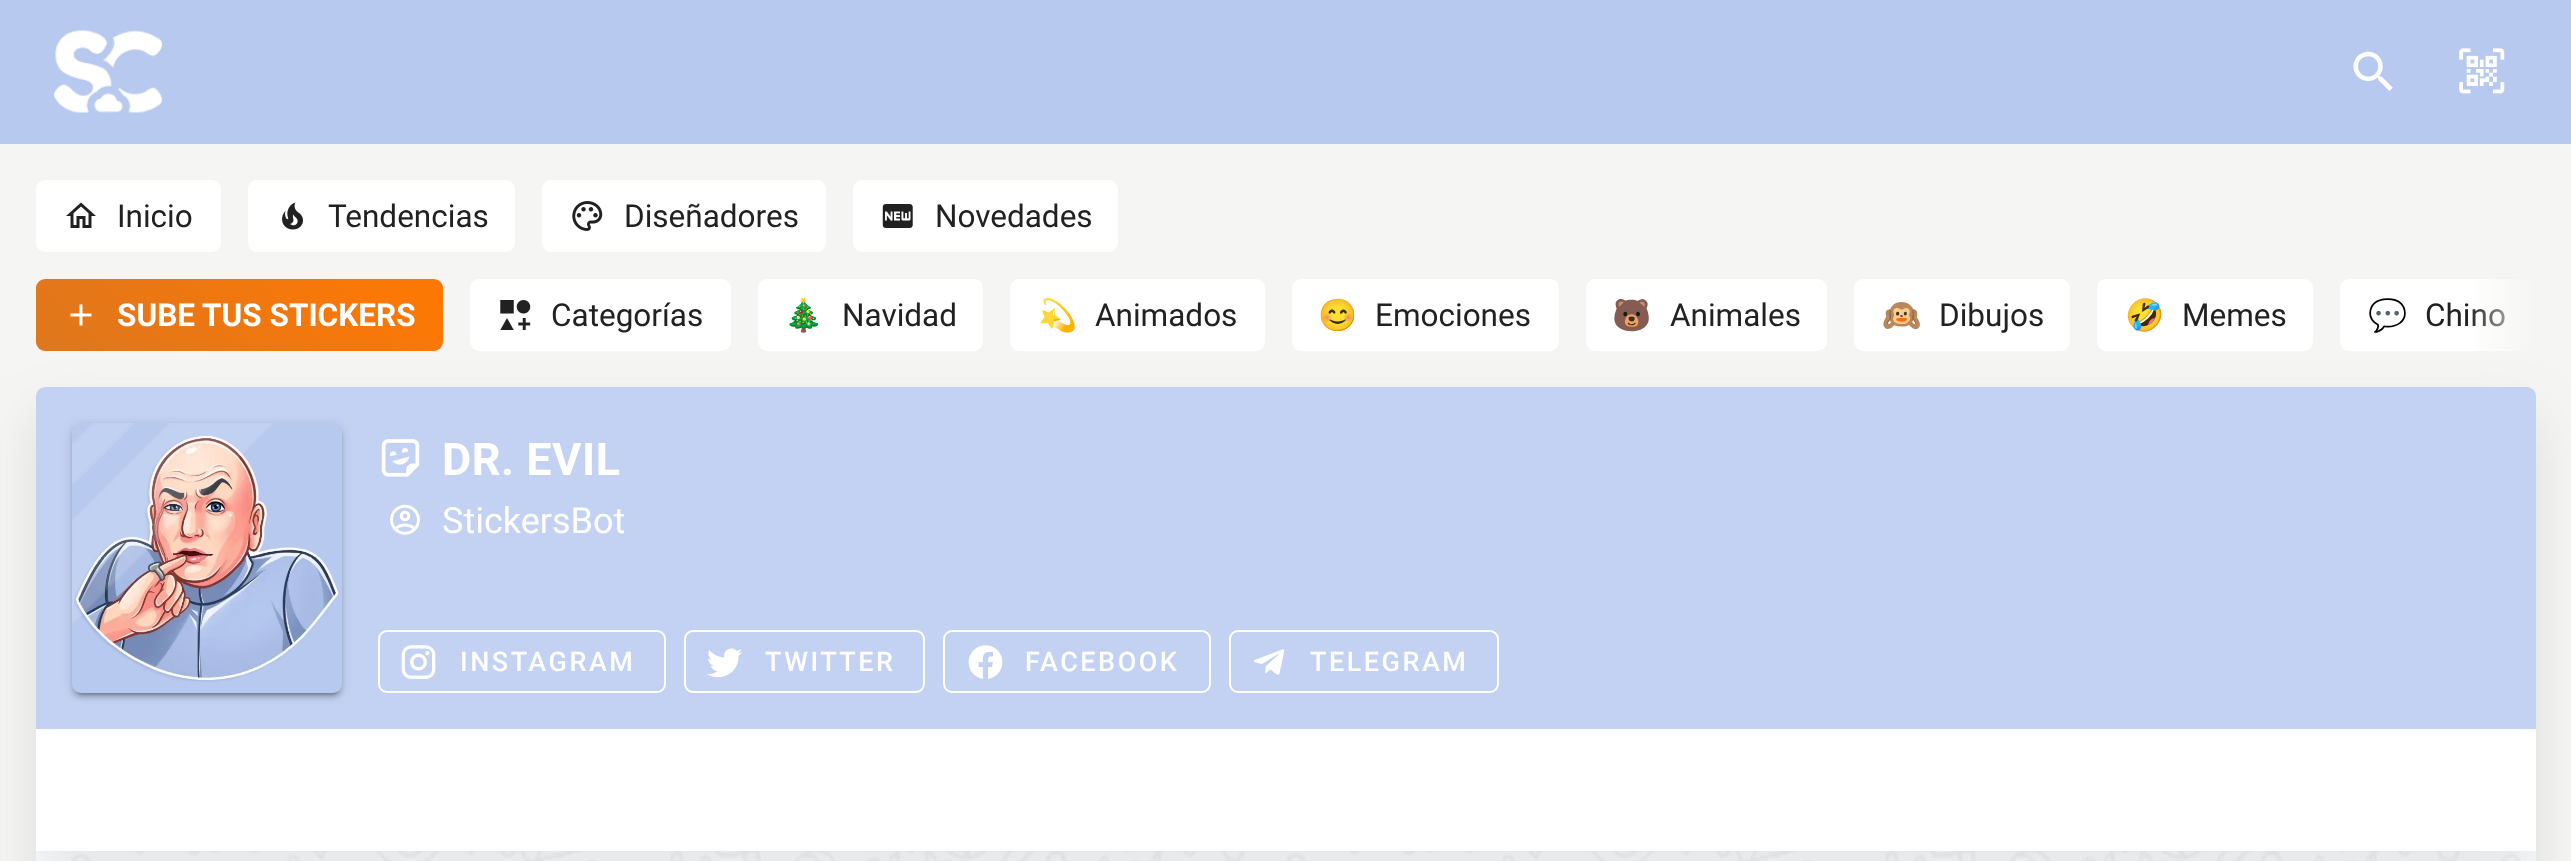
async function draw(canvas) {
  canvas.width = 2571;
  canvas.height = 861;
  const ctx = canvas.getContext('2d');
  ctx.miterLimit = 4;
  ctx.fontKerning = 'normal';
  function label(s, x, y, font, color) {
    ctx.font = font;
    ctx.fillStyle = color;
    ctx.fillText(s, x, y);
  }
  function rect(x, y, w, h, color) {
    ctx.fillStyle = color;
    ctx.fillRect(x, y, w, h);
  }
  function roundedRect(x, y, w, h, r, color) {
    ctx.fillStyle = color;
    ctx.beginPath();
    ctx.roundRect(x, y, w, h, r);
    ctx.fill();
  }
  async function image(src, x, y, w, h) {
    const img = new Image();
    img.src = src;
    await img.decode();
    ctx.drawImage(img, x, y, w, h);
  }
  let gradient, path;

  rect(0, 0, 2571, 861, '#f5f5f3');
  rect(0, 0, 2571, 144, '#b7c9ef');
  await image('assets/img1.png', 54, 30, 108, 83);
  await image('assets/img2.png', 2353, 51, 40, 40);
  await image('assets/img3.png', 2459, 48, 46, 46);
  roundedRect(36, 180, 185, 72, 9, '#fff');
  await image('assets/img4.png', 66, 202, 30, 26);
  label('Inicio', 117, 227, '31.5px Roboto', '#212121');
  roundedRect(248, 180, 267, 72, 9, '#fff');
  await image('assets/img5.png', 282, 202, 21, 28);
  label('Tendencias', 328, 227, '31.5px Roboto', '#212121');
  roundedRect(542, 180, 284, 72, 9, '#fff');
  await image('assets/img6.png', 572, 201, 31, 30);
  label('Diseñadores', 624, 227, '31.5px Roboto', '#212121');
  roundedRect(853, 180, 265, 72, 9, '#fff');
  await image('assets/img7.png', 882, 204, 31, 24);
  label('Novedades', 935, 227, '31.5px Roboto', '#212121');
  ctx.fillStyle = '#666e6229';
  ctx.filter = 'blur(27px)';
  ctx.beginPath();
  ctx.roundRect(36, 414, 2500, 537, 9);
  ctx.fill();
  ctx.filter = 'none';
  roundedRect(2340, 279, 194, 72, 9, '#fff');
  label('Chino', 2425, 326, '31.5px Roboto', '#212121');
  gradient = ctx.createLinearGradient(2468, 315, 2536, 315);
  gradient.addColorStop(0, '#f5f5f300');
  gradient.addColorStop(1, '#f5f5f3');
  ctx.fillStyle = gradient;
  ctx.fillRect(2473, 279, 61, 72);
  gradient = ctx.createLinearGradient(120, 435, 359, 195);
  gradient.addColorStop(0, '#de771e');
  gradient.addColorStop(1, '#ff7802');
  ctx.fillStyle = gradient;
  ctx.beginPath();
  ctx.roundRect(36, 279, 407, 72, 9);
  ctx.fill();
  await image('assets/img8.png', 70, 304, 22, 22);
  label('SUBE TUS STICKERS', 117, 326, 'bold 31.5px Roboto', '#fff');
  roundedRect(470, 279, 261, 72, 9, '#fff');
  await image('assets/img9.png', 500, 300, 31, 30);
  label('Categorías', 551, 326, '31.5px Roboto', '#212121');
  roundedRect(758, 279, 225, 72, 9, '#fff');
  label('🎄', 784, 326, '31.5px Noto Color Emoji', '#212121');
  label('Navidad', 842, 326, '31.5px Roboto', '#212121');
  roundedRect(1010, 279, 255, 72, 9, '#fff');
  label('💫', 1038, 326, '31.5px Noto Color Emoji', '#212121');
  label('Animados', 1095, 326, '31.5px Roboto', '#212121');
  roundedRect(1292, 279, 267, 72, 9, '#fff');
  label('😊', 1318, 326, '31.5px Noto Color Emoji', '#212121');
  label('Emociones', 1375, 326, '31.5px Roboto', '#212121');
  roundedRect(1586, 279, 241, 72, 9, '#fff');
  label('🐻', 1612, 326, '31.5px Noto Color Emoji', '#212121');
  label('Animales', 1670, 326, '31.5px Roboto', '#212121');
  roundedRect(1854, 279, 216, 72, 9, '#fff');
  label('🙉', 1882, 326, '31.5px Noto Color Emoji', '#212121');
  label('Dibujos', 1939, 326, '31.5px Roboto', '#212121');
  roundedRect(2097, 279, 216, 72, 9, '#fff');
  label('🤣', 2125, 326, '31.5px Noto Color Emoji', '#212121');
  label('Memes', 2182, 326, '31.5px Roboto', '#212121');
  label('💬', 2368, 326, '31.5px Noto Color Emoji', '#212121');
  roundedRect(36, 387, 2500, 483, 9, '#fff');
  ctx.save();
  ctx.beginPath();
  ctx.roundRect(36, 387, 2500, 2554, 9);
  ctx.clip();
  path = new Path2D('M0 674H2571V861H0ZM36 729H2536V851H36Z');
  ctx.clip(path, 'evenodd');
  ctx.fillStyle = '#666e6229';
  ctx.filter = 'blur(27px)';
  ctx.beginPath();
  ctx.rect(36, 756, 2500, 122);
  ctx.fill();
  ctx.filter = 'none';
  ctx.restore();
  ctx.fillStyle = '#b7c9efd6';
  ctx.beginPath();
  ctx.roundRect(36, 387, 2500, 342, [9, 9, 0, 0]);
  ctx.fill();
  ctx.fillStyle = '#0000001f';
  ctx.filter = 'blur(5.5px)';
  ctx.beginPath();
  ctx.roundRect(72, 425, 270, 270, 9);
  ctx.fill();
  ctx.filter = 'none';
  ctx.fillStyle = '#00000024';
  ctx.filter = 'blur(2px)';
  ctx.beginPath();
  ctx.roundRect(72, 428, 270, 270, 9);
  ctx.fill();
  ctx.filter = 'none';
  ctx.fillStyle = '#00000033';
  ctx.filter = 'blur(1px)';
  ctx.beginPath();
  ctx.roundRect(77, 434, 261, 261, 5);
  ctx.fill();
  ctx.filter = 'none';
  roundedRect(72, 423, 270, 270, 9, '#b7c9ef');
  await image('assets/img11.png', 74, 435, 265, 247);
  await image('assets/img10.png', 72, 423, 201, 201);
  await image('assets/img12.png', 381, 439, 39, 38);
  ctx.letterSpacing = '0.5px';
  label('DR. EVIL', 442, 475, 'bold 45px Roboto', '#fff');
  await image('assets/img13.png', 390, 504, 30, 31);
  ctx.letterSpacing = '0px';
  label('StickersBot', 442, 533, '36px Roboto', '#fff');
  ctx.beginPath();
  ctx.roundRect(379, 631, 286, 61, 8);
  ctx.strokeStyle = '#fff';
  ctx.lineWidth = 2;
  ctx.stroke();
  await image('assets/img14.png', 401, 645, 35, 34);
  ctx.letterSpacing = '2.5px';
  label('INSTAGRAM', 460, 671, '500 27px Roboto', '#fff');
  ctx.beginPath();
  ctx.roundRect(685, 631, 239, 61, 8);
  ctx.stroke();
  await image('assets/img15.png', 707, 648, 35, 30);
  label('TWITTER', 765, 671, '500 27px Roboto', '#fff');
  ctx.beginPath();
  ctx.roundRect(944, 631, 266, 61, 8);
  ctx.stroke();
  await image('assets/img16.png', 968, 645, 35, 34);
  label('FACEBOOK', 1025, 671, '500 27px Roboto', '#fff');
  ctx.beginPath();
  ctx.roundRect(1230, 631, 268, 61, 8);
  ctx.stroke();
  await image('assets/img17.png', 1253, 649, 32, 26);
  label('TELEGRAM', 1310, 671, '500 27px Roboto', '#fff');
  rect(36, 851, 2500, 10, '#b7c9ef0d');
  await image('assets/img18.png', 71, 851, 2450, 10);
}

draw(document.querySelector('canvas'));
